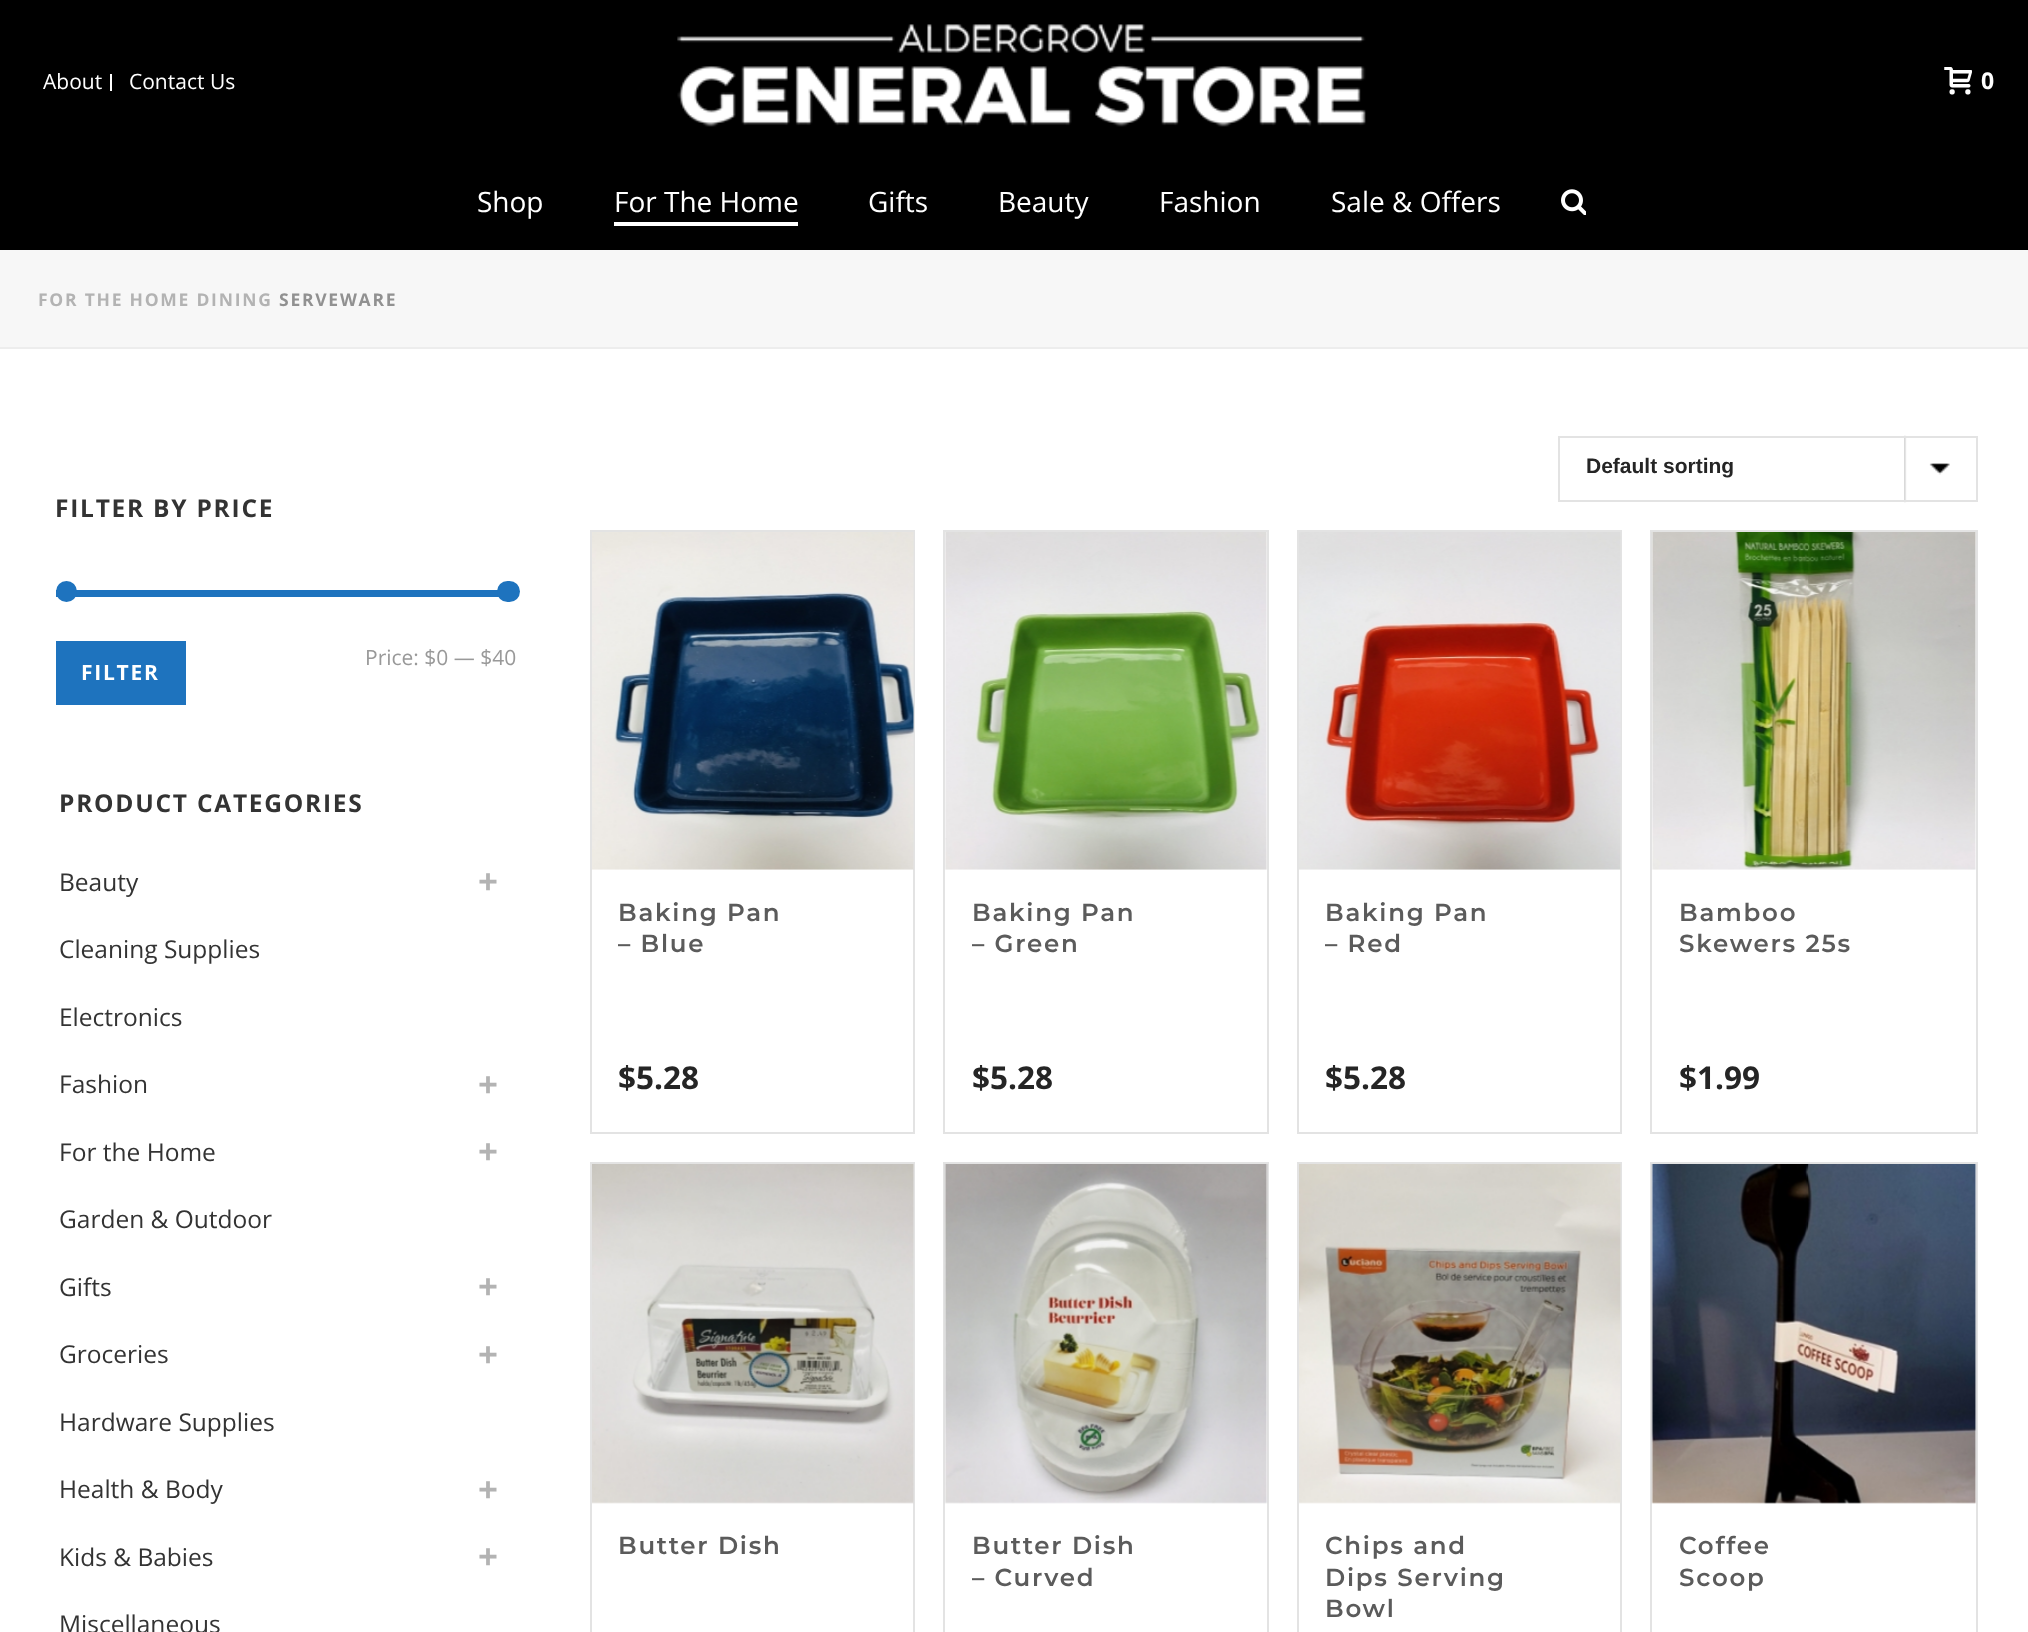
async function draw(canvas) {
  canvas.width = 2028;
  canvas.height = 1632;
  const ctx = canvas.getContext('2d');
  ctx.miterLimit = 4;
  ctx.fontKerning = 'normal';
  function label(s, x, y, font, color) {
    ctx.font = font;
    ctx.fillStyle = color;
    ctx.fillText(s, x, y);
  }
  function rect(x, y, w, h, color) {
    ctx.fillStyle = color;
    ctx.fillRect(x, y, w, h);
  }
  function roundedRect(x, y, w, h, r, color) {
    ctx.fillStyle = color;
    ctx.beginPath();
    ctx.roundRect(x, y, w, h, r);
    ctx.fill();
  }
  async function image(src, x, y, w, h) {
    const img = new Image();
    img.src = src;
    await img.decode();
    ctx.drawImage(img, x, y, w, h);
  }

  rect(0, 0, 2028, 1632, '#fff');
  rect(0, 250, 2028, 97, '#f7f7f7');
  rect(0, 347, 2028, 2, '#ededed');
  rect(0, 0, 2028, 250, '#000');
  rect(110, 74, 2, 17, '#fff');
  label('About', 43, 89, '21px Open Sans', '#fff');
  label('Contact Us', 129, 89, '21px Open Sans', '#fff');
  await image('assets/img1.png', 677, 24, 689, 103);
  await image('assets/img2.png', 1944, 67, 28, 28);
  label('0', 1981, 89, 'bold 23px Open Sans', '#fff');
  label('Shop', 477, 212, '28px Open Sans', '#fff');
  label('For The Home', 614, 212, '28px Open Sans', '#fff');
  rect(614, 222, 184, 4, '#fff');
  label('Gifts', 868, 212, '28px Open Sans', '#fff');
  label('Beauty', 998, 212, '28px Open Sans', '#fff');
  label('Fashion', 1159, 212, '28px Open Sans', '#fff');
  label('Sale & Offers', 1331, 212, '28px Open Sans', '#fff');
  await image('assets/img3.png', 1561, 189, 25, 26);
  ctx.letterSpacing = '1.75px';
  label('FOR THE HOME DINING', 38, 306, 'bold 17.5px Open Sans', '#b3b3b3');
  label('SERVEWARE', 279, 306, 'bold 17.5px Open Sans', '#919191');
  label('FILTER BY PRICE', 55, 517, 'bold 24.5px Open Sans', '#333');
  rect(56, 590, 443, 7, '#1e73be');
  ctx.beginPath();
  ctx.arc(66.5, 591.5, 10.5, 0, 2 * Math.PI);
  ctx.fill();
  roundedRect(497, 581, 23, 21, 10.5, '#1e73be');
  ctx.letterSpacing = '0px';
  label('Price: $0 — $40', 365, 665, '21px Open Sans', '#999');
  rect(56, 641, 130, 64, '#1e73be');
  ctx.letterSpacing = '1.75px';
  label('FILTER', 81, 680, 'bold 21px Open Sans', '#fff');
  label('PRODUCT CATEGORIES', 59, 812, 'bold 24.5px Open Sans', '#333');
  ctx.letterSpacing = '0px';
  label('Beauty', 59, 891, '24.5px Open Sans', '#333');
  label('+', 478, 894, 'bold 35px Open Sans', '#b3b3b3');
  label('Cleaning Supplies', 59, 958, '24.5px Open Sans', '#333');
  label('Electronics', 59, 1026, '24.5px Open Sans', '#333');
  label('Fashion', 59, 1093, '24.5px Open Sans', '#333');
  label('+', 478, 1097, 'bold 35px Open Sans', '#b3b3b3');
  label('For the Home', 59, 1161, '24.5px Open Sans', '#333');
  label('+', 478, 1164, 'bold 35px Open Sans', '#b3b3b3');
  label('Garden & Outdoor', 59, 1228, '24.5px Open Sans', '#333');
  label('Gifts', 59, 1296, '24.5px Open Sans', '#333');
  label('+', 478, 1299, 'bold 35px Open Sans', '#b3b3b3');
  label('Groceries', 59, 1363, '24.5px Open Sans', '#333');
  label('+', 478, 1367, 'bold 35px Open Sans', '#b3b3b3');
  label('Hardware Supplies', 59, 1431, '24.5px Open Sans', '#333');
  label('Health & Body', 59, 1498, '24.5px Open Sans', '#333');
  label('+', 478, 1502, 'bold 35px Open Sans', '#b3b3b3');
  label('Kids & Babies', 59, 1566, '24.5px Open Sans', '#333');
  label('+', 478, 1569, 'bold 35px Open Sans', '#b3b3b3');
  label('Miscellaneous', 59, 1633, '24.5px Open Sans', '#333');
  await image('assets/img4.png', 1904, 435, 46, 68);
  ctx.strokeStyle = '#e3e3e3';
  ctx.lineWidth = 2;
  ctx.strokeRect(1559, 437, 418, 64);
  label('Default sorting', 1586, 473, 'bold 21px Liberation Sans', '#252525');
  ctx.strokeRect(591, 531, 323, 602);
  await image('assets/img5.png', 592, 532, 322, 338);
  ctx.letterSpacing = '1.75px';
  label('Baking Pan', 618, 921, '600 24.5px Montserrat', '#5b5b5b');
  label('– Blue', 618, 952, '600 24.5px Montserrat', '#5b5b5b');
  ctx.letterSpacing = '0px';
  label('$5.28', 618, 1089, 'bold 31.5px Open Sans', '#252525');
  ctx.strokeRect(944, 531, 324, 602);
  await image('assets/img6.png', 945, 532, 322, 338);
  ctx.letterSpacing = '1.75px';
  label('Baking Pan', 972, 921, '600 24.5px Montserrat', '#5b5b5b');
  label('– Green', 972, 952, '600 24.5px Montserrat', '#5b5b5b');
  ctx.letterSpacing = '0px';
  label('$5.28', 972, 1089, 'bold 31.5px Open Sans', '#252525');
  ctx.strokeRect(1298, 531, 323, 602);
  await image('assets/img7.png', 1299, 532, 322, 338);
  ctx.letterSpacing = '1.75px';
  label('Baking Pan', 1325, 921, '600 24.5px Montserrat', '#5b5b5b');
  label('– Red', 1325, 952, '600 24.5px Montserrat', '#5b5b5b');
  ctx.letterSpacing = '0px';
  label('$5.28', 1325, 1089, 'bold 31.5px Open Sans', '#252525');
  ctx.strokeRect(1651, 531, 326, 602);
  await image('assets/img8.png', 1651, 532, 325, 338);
  ctx.letterSpacing = '1.75px';
  label('Bamboo', 1679, 921, '600 24.5px Montserrat', '#5b5b5b');
  label('Skewers 25s', 1679, 952, '600 24.5px Montserrat', '#5b5b5b');
  ctx.letterSpacing = '0px';
  label('$1.99', 1679, 1089, 'bold 31.5px Open Sans', '#252525');
  ctx.strokeRect(591, 1163, 323, 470);
  await image('assets/img9.png', 592, 1164, 322, 340);
  ctx.letterSpacing = '1.75px';
  label('Butter Dish', 618, 1554, '600 24.5px Montserrat', '#5b5b5b');
  ctx.strokeRect(944, 1163, 324, 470);
  await image('assets/img10.png', 944, 1164, 324, 340);
  label('Butter Dish', 972, 1554, '600 24.5px Montserrat', '#5b5b5b');
  label('– Curved', 972, 1586, '600 24.5px Montserrat', '#5b5b5b');
  ctx.strokeRect(1298, 1163, 323, 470);
  await image('assets/img11.png', 1299, 1164, 322, 340);
  label('Chips and', 1325, 1554, '600 24.5px Montserrat', '#5b5b5b');
  label('Dips Serving', 1325, 1586, '600 24.5px Montserrat', '#5b5b5b');
  label('Bowl', 1325, 1617, '600 24.5px Montserrat', '#5b5b5b');
  ctx.strokeRect(1651, 1163, 326, 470);
  await image('assets/img12.png', 1651, 1164, 326, 340);
  label('Coffee', 1679, 1554, '600 24.5px Montserrat', '#5b5b5b');
  label('Scoop', 1679, 1586, '600 24.5px Montserrat', '#5b5b5b');
}

draw(document.querySelector('canvas'));
